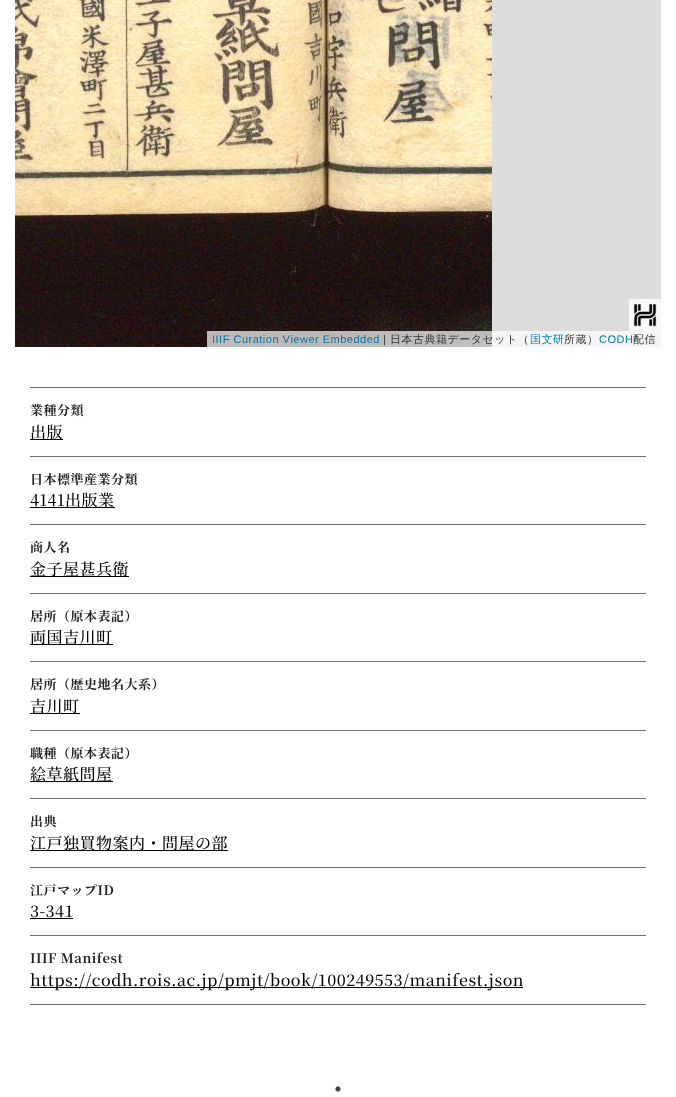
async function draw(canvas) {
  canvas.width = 676;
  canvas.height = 1097;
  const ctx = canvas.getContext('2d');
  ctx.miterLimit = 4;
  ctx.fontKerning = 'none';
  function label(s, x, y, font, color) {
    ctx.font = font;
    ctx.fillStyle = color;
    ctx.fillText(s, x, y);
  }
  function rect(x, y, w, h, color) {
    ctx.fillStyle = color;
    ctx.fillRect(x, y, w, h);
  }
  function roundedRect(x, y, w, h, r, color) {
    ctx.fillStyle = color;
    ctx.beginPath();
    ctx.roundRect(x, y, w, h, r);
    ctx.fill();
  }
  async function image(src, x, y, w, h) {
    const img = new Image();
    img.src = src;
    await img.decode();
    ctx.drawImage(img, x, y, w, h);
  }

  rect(0, 0, 676, 1097, '#fff');
  rect(492, 0, 169, 347, '#ddd');
  await image('assets/img1.png', 15, 0, 477, 347);
  roundedRect(629, 299, 32, 32, 2, '#f5f5f5');
  await image('assets/img2.png', 633, 303, 24, 24);
  ctx.beginPath();
  ctx.rect(631, 301, 28, 28);
  ctx.strokeStyle = '#ffffff4d';
  ctx.lineWidth = 4;
  ctx.stroke();
  rect(207, 331, 454, 16, '#ffffffb3');
  ctx.letterSpacing = '0.5px';
  label('IIIF Curation Viewer Embedded', 212, 343, '11px Liberation Sans', '#0078a8');
  label('|', 383, 343, '11px Liberation Sans', '#333');
  label('日本古典籍データセット（', 390, 343, '500 11px WenQuanYi Zen Hei', '#333');
  label('国文研', 530, 343, '500 11px WenQuanYi Zen Hei', '#0078a8');
  label('所蔵）', 564, 343, '500 11px WenQuanYi Zen Hei', '#333');
  label('CODH', 599, 343, '11px Liberation Sans', '#0078a8');
  label('配信', 633, 343, '500 11px WenQuanYi Zen Hei', '#333');
  rect(30, 387, 616, 1, '#707070');
  rect(30, 456, 616, 1, '#707070');
  label('業種分類', 30, 415, 'bold 13px Noto Serif JP', '#222');
  rect(30, 439, 33, 1, '#000');
  label('出版', 30, 438, '500 16px Noto Serif JP', '#000');
  rect(30, 524, 616, 1, '#707070');
  label('日本標準産業分類', 30, 484, 'bold 13px Noto Serif JP', '#222');
  rect(30, 507, 85, 1, '#000');
  label('4141出版業', 30, 506, '500 16px Noto Serif JP', '#000');
  rect(30, 593, 616, 1, '#707070');
  label('商人名', 30, 552, 'bold 13px Noto Serif JP', '#222');
  rect(30, 576, 99, 1, '#000');
  label('金子屋甚兵衛', 30, 575, '500 16px Noto Serif JP', '#000');
  rect(30, 661, 616, 1, '#707070');
  label('居所（原本表記）', 30, 621, 'bold 13px Noto Serif JP', '#222');
  rect(30, 644, 83, 1, '#000');
  label('両国吉川町', 30, 643, '500 16px Noto Serif JP', '#000');
  rect(30, 730, 616, 1, '#707070');
  label('居所（歴史地名大系）', 30, 689, 'bold 13px Noto Serif JP', '#222');
  rect(30, 713, 50, 1, '#000');
  label('吉川町', 30, 712, '500 16px Noto Serif JP', '#000');
  rect(30, 798, 616, 1, '#707070');
  label('職種（原本表記）', 30, 758, 'bold 13px Noto Serif JP', '#222');
  rect(30, 781, 83, 1, '#000');
  label('絵草紙問屋', 30, 780, '500 16px Noto Serif JP', '#000');
  rect(30, 867, 616, 1, '#707070');
  label('出典', 30, 826, 'bold 13px Noto Serif JP', '#222');
  rect(30, 850, 198, 1, '#000');
  label('江戸独買物案内・問屋の部', 30, 849, '500 16px Noto Serif JP', '#000');
  rect(30, 935, 616, 1, '#707070');
  label('江戸マップID', 30, 895, 'bold 13px Noto Serif JP', '#222');
  label('3-341', 30, 917, '500 16px Noto Serif JP', '#000');
  rect(30, 918, 43, 1, '#000');
  rect(30, 1004, 616, 1, '#707070');
  label('IIIF Manifest', 30, 963, 'bold 13px Noto Serif JP', '#222');
  rect(30, 987, 493, 1, '#000');
  label('https://codh.rois.ac.jp/pmjt/book/100249553/manifest.json', 30, 986, '500 16px Noto Serif JP', '#000');
  await image('assets/img3.png', 335, 1086, 6, 6);
}

draw(document.querySelector('canvas'));
